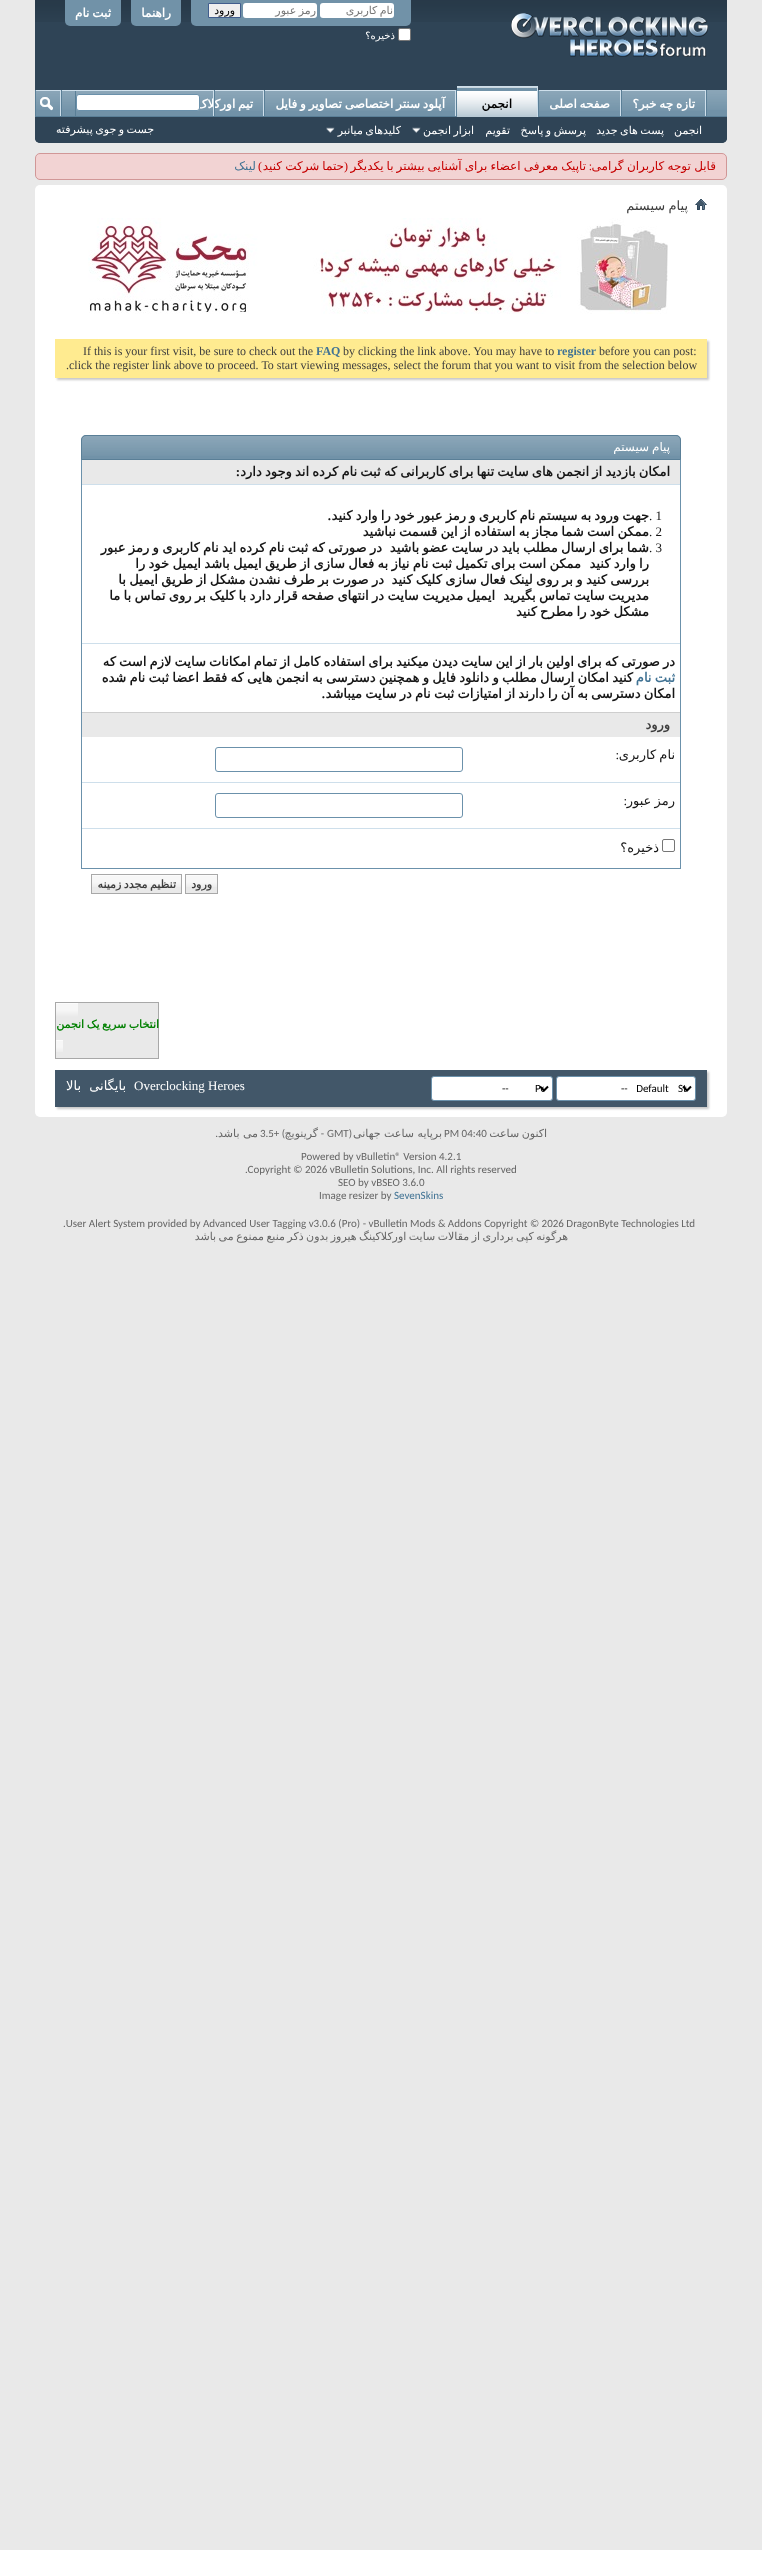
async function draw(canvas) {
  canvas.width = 762;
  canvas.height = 2550;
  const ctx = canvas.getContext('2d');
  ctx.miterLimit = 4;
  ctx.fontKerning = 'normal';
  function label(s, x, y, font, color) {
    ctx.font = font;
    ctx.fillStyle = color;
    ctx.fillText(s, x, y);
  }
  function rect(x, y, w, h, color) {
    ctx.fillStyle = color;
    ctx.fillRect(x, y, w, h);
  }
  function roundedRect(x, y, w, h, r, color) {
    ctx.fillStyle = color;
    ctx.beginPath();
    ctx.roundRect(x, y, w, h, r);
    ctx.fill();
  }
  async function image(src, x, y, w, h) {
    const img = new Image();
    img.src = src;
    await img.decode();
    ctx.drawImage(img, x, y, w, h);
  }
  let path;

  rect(0, 0, 762, 2550, '#e9e9e9');
  ctx.fillStyle = '#2f4456';
  ctx.beginPath();
  ctx.roundRect(35, 0, 692, 143, [0, 0, 5, 5]);
  ctx.fill();
  await image('assets/img1.png', 35, 0, 692, 22);
  await image('assets/img2.png', 511, 13, 197, 44);
  ctx.fillStyle = '#7192a8';
  ctx.beginPath();
  ctx.roundRect(191, 0, 220, 26, [0, 0, 5, 5]);
  ctx.fill();
  roundedRect(320, 3, 74, 15, 3, '#fff');
  ctx.wordSpacing = '-1px';
  ctx.direction = 'rtl';
  label('نام کاربری', 393, 14, '11px DejaVu Sans', '#777');
  roundedRect(243, 3, 74, 15, 3, '#fff');
  ctx.save();
  ctx.beginPath();
  ctx.rect(244, 4, 72, 13);
  ctx.clip();
  label('رمز عبور', 316, 14, '11px DejaVu Sans', '#777');
  ctx.restore();
  ctx.fillStyle = '#efefef';
  ctx.beginPath();
  ctx.rect(208.5, 3.5, 32, 14);
  ctx.fill();
  ctx.strokeStyle = '#415d8d';
  ctx.stroke();
  ctx.wordSpacing = '0px';
  label('ورود', 235, 14, '11px DejaVu Sans', '#000');
  ctx.fillStyle = '#fff';
  ctx.beginPath();
  ctx.roundRect(398.5, 28.5, 12, 12, 1.5);
  ctx.fill();
  ctx.strokeStyle = '#767676';
  ctx.stroke();
  label('ذخیره؟', 395, 39, '10px DejaVu Sans', '#fff');
  ctx.fillStyle = '#7192a8';
  ctx.beginPath();
  ctx.roundRect(131, 0, 50, 26, [0, 0, 5, 5]);
  ctx.fill();
  label('راهنما', 171, 17, 'bold 12px DejaVu Sans', '#fff');
  ctx.fillStyle = '#7192a8';
  ctx.beginPath();
  ctx.roundRect(65, 0, 56, 26, [0, 0, 5, 5]);
  ctx.fill();
  ctx.wordSpacing = '-1px';
  label('ثبت نام', 111, 17, 'bold 12px DejaVu Sans', '#fff');
  ctx.fillStyle = '#2f4456';
  ctx.beginPath();
  ctx.roundRect(35, 90, 692, 53, [0, 0, 5, 5]);
  ctx.fill();
  rect(36, 90, 691, 26, '#7192a8');
  await image('assets/img3.png', 36, 90, 691, 20);
  rect(706, 90, 1, 27, '#5a7f97');
  rect(621, 90, 1, 27, '#5a7f97');
  rect(622, 91, 83, 19, '#7192a8');
  await image('assets/img4.png', 622, 91, 83, 20);
  rect(622, 90, 84, 1, '#cedfeb');
  rect(705, 90, 1, 27, '#cedfeb');
  label('تازه چه خبر؟', 695, 108, 'bold 12px DejaVu Sans', '#fff');
  rect(538, 90, 1, 27, '#5a7f97');
  rect(539, 91, 81, 19, '#7192a8');
  await image('assets/img5.png', 539, 91, 81, 20);
  rect(539, 90, 82, 1, '#cedfeb');
  rect(620, 90, 1, 27, '#cedfeb');
  label('صفحه اصلی', 610, 108, 'bold 12px DejaVu Sans', '#fff');
  rect(456, 90, 1, 26, '#5a7f97');
  rect(264, 90, 1, 27, '#5a7f97');
  rect(265, 90, 191, 1, '#cedfeb');
  rect(455, 90, 1, 27, '#cedfeb');
  rect(75, 90, 1, 27, '#5a7f97');
  rect(215, 90, 49, 1, '#cedfeb');
  rect(263, 90, 1, 27, '#cedfeb');
  rect(35, 116, 692, 1, '#5a7f97');
  rect(457, 87, 80, 30, '#7192a8');
  await image('assets/img6.png', 457, 87, 80, 30);
  rect(457, 86, 81, 1, '#cedfeb');
  rect(537, 86, 1, 31, '#cedfeb');
  ctx.wordSpacing = '0px';
  label('انجمن', 512, 108, 'bold 12px DejaVu Sans', '#000');
  rect(265, 91, 190, 19, '#7192a8');
  await image('assets/img7.png', 265, 91, 190, 20);
  ctx.wordSpacing = '-1px';
  label('آپلود سنتر اختصاصی تصاویر و فایل', 445, 108, 'bold 12px DejaVu Sans', '#fff');
  rect(76, 91, 187, 19, '#7192a8');
  await image('assets/img8.png', 76, 91, 187, 20);
  label('تیم اورکلاک', 253, 108, 'bold 12px DejaVu Sans', '#fff');
  ctx.wordSpacing = '0px';
  label('انجمن', 702, 134, '11px DejaVu Sans', '#fff');
  ctx.wordSpacing = '-1px';
  label('پست های جدید', 664, 134, '11px DejaVu Sans', '#fff');
  label('پرسش و پاسخ', 586, 134, '11px DejaVu Sans', '#fff');
  ctx.wordSpacing = '0px';
  label('تقویم', 510, 134, '11px DejaVu Sans', '#fff');
  ctx.wordSpacing = '-1px';
  label('ابزار انجمن', 474, 134, '11px DejaVu Sans', '#fff');
  await image('assets/img9.png', 412, 127, 9, 6);
  label('کلیدهای میانبر', 401, 134, '11px DejaVu Sans', '#fff');
  await image('assets/img9.png', 326, 127, 9, 6);
  rect(214, 90, 1, 26, '#5a7f97');
  rect(62, 90, 152, 1, '#cedfeb');
  rect(213, 90, 1, 26, '#cedfeb');
  ctx.fillStyle = '#fff';
  ctx.beginPath();
  ctx.roundRect(76.5, 94.5, 123, 16, 2.5);
  ctx.fill();
  ctx.strokeStyle = '#6b91ab';
  ctx.stroke();
  rect(61, 90, 1, 26, '#5a7f97');
  rect(35, 90, 1, 26, '#5a7f97');
  rect(36, 90, 25, 1, '#cedfeb');
  rect(60, 90, 1, 26, '#cedfeb');
  await image('assets/img10.png', 40, 97, 13, 14);
  label('جست و جوی پیشرفته', 154, 133, '11px DejaVu Sans', '#fff');
  ctx.fillStyle = '#f2d3d3';
  ctx.beginPath();
  ctx.roundRect(35.5, 153.5, 691, 26, 4.5);
  ctx.fill();
  ctx.strokeStyle = '#d19797';
  ctx.stroke();
  ctx.wordSpacing = '-0.5px';
  label('قابل توجه کاربران گرامی', 716, 170, '12px DejaVu Sans', '#c60000');
  ctx.wordSpacing = '0px';
  label(':', 592, 170, '12px Liberation Serif', '#c60000');
  ctx.wordSpacing = '-0.75px';
  label('تاپیک معرفی اعضاء برای آشنایی بیشتر با یکدیگر', 586, 170, '12px DejaVu Sans', '#c60000');
  label('حتما شرکت کنید', 344, 170, '12px DejaVu Sans', '#c60000');
  ctx.wordSpacing = '0px';
  label('(', 348, 170, '12px Liberation Serif', '#c60000');
  label(')', 262, 170, '12px Liberation Serif', '#c60000');
  label('لینک', 256, 170, '12px DejaVu Sans', '#417394');
  roundedRect(35, 185, 692, 932, 5, '#fff');
  await image('assets/img11.png', 695, 199, 12, 11);
  ctx.wordSpacing = '-0.9px';
  label('پیام سیستم', 688, 210, '13px DejaVu Sans', '#3e3e3e');
  await image('assets/img12.png', 88, 218, 580, 96);
  ctx.fillStyle = '#c8c8c8';
  ctx.filter = 'blur(1px)';
  ctx.beginPath();
  ctx.rect(57, 341, 652, 39);
  ctx.fill();
  ctx.filter = 'none';
  rect(55, 339, 652, 39, '#ffeb90');
  ctx.wordSpacing = '0px';
  ctx.direction = 'ltr';
  label('before you can post:', 599, 355, '12px Liberation Serif', '#3e3e3e');
  label('register', 557, 355, 'bold 12px Liberation Serif', '#417394');
  label('by clicking the link above. You may have to', 343, 355, '12px Liberation Serif', '#3e3e3e');
  label('FAQ', 316, 355, 'bold 12px Liberation Serif', '#417394');
  label('If this is your first visit, be sure to check out the', 83, 355, '12px Liberation Serif', '#3e3e3e');
  label('.click the register link above to proceed. To start viewing messages, select the forum that you want to visit from the selection below', 66, 369, '12px Liberation Serif', '#3e3e3e');
  ctx.fillStyle = '#7192a8';
  ctx.beginPath();
  ctx.roundRect(81, 435, 600, 25, [5, 5, 0, 0]);
  ctx.fill();
  await image('assets/img13.png', 81, 436, 600, 20);
  ctx.beginPath();
  ctx.roundRect(81.5, 435.5, 599, 24, [4.5, 4.5, 0, 0]);
  ctx.strokeStyle = '#5a7f97';
  ctx.stroke();
  ctx.wordSpacing = '-1px';
  ctx.direction = 'rtl';
  label('پیام سیستم', 670, 451, '12px DejaVu Sans', '#fff');
  rect(680, 460, 1, 409, '#6b91ab');
  rect(81, 868, 600, 1, '#6b91ab');
  rect(81, 460, 1, 409, '#6b91ab');
  rect(82, 460, 598, 24, '#e9e9e9');
  ctx.wordSpacing = '-0.9px';
  label('امکان بازدید از انجمن های سایت تنها برای کاربرانی که ثبت نام کرده اند وجود دارد', 670, 476, 'bold 13px DejaVu Sans', '#161616');
  ctx.wordSpacing = '0px';
  label(':', 240, 476, 'bold 13px Liberation Serif', '#161616');
  rect(82, 484, 598, 1, '#cedfeb');
  ctx.direction = 'ltr';
  label('. 1', 649, 520, '13px Liberation Serif', '#161616');
  ctx.wordSpacing = '-0.9px';
  ctx.direction = 'rtl';
  label('جهت ورود به سیستم نام کاربری و رمز عبور خود را وارد کنید', 649, 520, 'bold 13px DejaVu Sans', '#161616');
  ctx.wordSpacing = '0px';
  label('.', 331, 520, 'bold 13px Liberation Serif', '#161616');
  ctx.direction = 'ltr';
  label('. 2', 649, 536, '13px Liberation Serif', '#161616');
  ctx.wordSpacing = '-0.9px';
  ctx.direction = 'rtl';
  label('ممکن است شما مجاز به استفاده از این قسمت نباشید', 649, 536, 'bold 13px DejaVu Sans', '#161616');
  ctx.wordSpacing = '0px';
  ctx.direction = 'ltr';
  label('. 3', 649, 552, '13px Liberation Serif', '#161616');
  ctx.wordSpacing = '-0.75px';
  ctx.direction = 'rtl';
  label('شما برای ارسال مطلب باید در سایت عضو باشید', 649, 552, 'bold 13px DejaVu Sans', '#161616');
  label('در صورتی که ثبت نام کرده اید نام کاربری و رمز عبور', 382, 552, 'bold 13px DejaVu Sans', '#161616');
  label('را وارد کنید', 649, 568, 'bold 13px DejaVu Sans', '#161616');
  label('ممکن است برای تکمیل ثبت نام نیاز به فعال سازی از طریق ایمیل باشد ایمیل خود را', 581, 568, 'bold 13px DejaVu Sans', '#161616');
  label('بررسی کنید و بر روی لینک فعال سازی کلیک کنید', 649, 584, 'bold 13px DejaVu Sans', '#161616');
  label('در صورت بر طرف نشدن مشکل از طریق ایمیل با', 384, 584, 'bold 13px DejaVu Sans', '#161616');
  label('مدیریت سایت تماس بگیرید', 649, 600, 'bold 13px DejaVu Sans', '#161616');
  label('ایمیل مدیریت سایت در انتهای صفحه قرار دارد با کلیک بر روی تماس با ما', 495, 600, 'bold 13px DejaVu Sans', '#161616');
  ctx.wordSpacing = '-0.9px';
  label('مشکل خود را مطرح کنید', 649, 616, 'bold 13px DejaVu Sans', '#161616');
  rect(82, 643, 598, 1, '#cedfeb');
  label('در صورتی که برای اولین بار از این سایت دیدن میکنید برای استفاده کامل از تمام امکانات سایت لازم است که', 675, 666, 'bold 13px DejaVu Sans', '#161616');
  label('ثبت نام', 675, 682, 'bold 13px DejaVu Sans', '#417394');
  ctx.wordSpacing = '-0.8px';
  label('کنید امکان ارسال مطلب و دانلود فایل و همچنین دسترسی به انجمن هایی که فقط اعضا ثبت نام شده', 633, 682, 'bold 13px DejaVu Sans', '#161616');
  ctx.wordSpacing = '-0.9px';
  label('امکان دسترسی به آن را دارند از امتیازات ثبت نام در سایت میباشد', 675, 698, 'bold 13px DejaVu Sans', '#161616');
  ctx.wordSpacing = '0px';
  label('.', 325, 698, 'bold 13px Liberation Serif', '#161616');
  rect(82, 713, 598, 24, '#e9e9e9');
  rect(82, 712, 598, 1, '#cecece');
  label('ورود', 670, 729, 'bold 13px DejaVu Sans', '#3e3e3e');
  ctx.wordSpacing = '-0.9px';
  label('نام کاربری', 675, 759, '13px DejaVu Sans', '#161616');
  ctx.wordSpacing = '0px';
  label(':', 619, 759, '13px Liberation Serif', '#161616');
  ctx.beginPath();
  ctx.roundRect(215.5, 747.5, 247, 24, 2.5);
  ctx.strokeStyle = '#6b91ab';
  ctx.stroke();
  rect(82, 782, 598, 1, '#cedfeb');
  ctx.wordSpacing = '-0.9px';
  label('رمز عبور', 675, 805, '13px DejaVu Sans', '#161616');
  ctx.wordSpacing = '0px';
  label(':', 627, 805, '13px Liberation Serif', '#161616');
  ctx.beginPath();
  ctx.roundRect(215.5, 793.5, 247, 24, 2.5);
  ctx.stroke();
  rect(82, 828, 598, 1, '#cedfeb');
  ctx.beginPath();
  ctx.roundRect(662.5, 839.5, 12, 12, 1.5);
  ctx.strokeStyle = '#767676';
  ctx.stroke();
  label('ذخیره؟', 659, 852, '13px DejaVu Sans', '#161616');
  rect(186, 875, 31, 18, '#e9e9e9');
  await image('assets/img14.png', 186, 875, 31, 12);
  ctx.strokeStyle = '#a8a8a8';
  ctx.strokeRect(185.5, 874.5, 32, 19);
  label('ورود', 212, 888, 'bold 11px DejaVu Sans', '#3e3e3e');
  rect(92, 875, 89, 18, '#e9e9e9');
  await image('assets/img15.png', 92, 875, 89, 12);
  ctx.strokeRect(91.5, 874.5, 90, 19);
  ctx.wordSpacing = '-1px';
  label('تنظیم مجدد زمینه', 176, 888, 'bold 11px DejaVu Sans', '#3e3e3e');
  rect(56, 1003, 102, 55, '#e9e9e9');
  await image('assets/img16.png', 56, 1003, 22, 49);
  ctx.strokeRect(55.5, 1002.5, 103, 56);
  label('انتخاب سریع یک انجمن', 159, 1028, 'bold 11px DejaVu Sans', '#008000');
  ctx.fillStyle = '#c8c8c8';
  ctx.filter = 'blur(1px)';
  ctx.beginPath();
  ctx.rect(57, 1072, 652, 37);
  ctx.fill();
  ctx.filter = 'none';
  rect(55, 1070, 652, 37, '#425769');
  ctx.fillStyle = '#fff';
  ctx.beginPath();
  ctx.roundRect(556.5, 1076.5, 139, 24, 2.5);
  ctx.fill();
  ctx.strokeStyle = '#6b91ab';
  ctx.stroke();
  path = new Path2D('M683 1086.5L687 1090.5L691 1086.5');
  ctx.strokeStyle = '#000';
  ctx.lineWidth = 2;
  ctx.stroke(path);
  ctx.wordSpacing = '0px';
  ctx.direction = 'ltr';
  label('St', 678, 1092, '11px Carlito', '#000');
  ctx.wordSpacing = '6px';
  label('-- Default', 621, 1092, '11px Carlito', '#000');
  ctx.fillStyle = '#fff';
  ctx.beginPath();
  ctx.roundRect(431.5, 1076.5, 121, 24, 2.5);
  ctx.fill();
  ctx.strokeStyle = '#6b91ab';
  ctx.lineWidth = 1;
  ctx.stroke();
  path = new Path2D('M540 1086.5L544 1090.5L548 1086.5');
  ctx.strokeStyle = '#000';
  ctx.lineWidth = 2;
  ctx.stroke(path);
  ctx.save();
  ctx.beginPath();
  ctx.rect(452, 1081, 92, 15);
  ctx.clip();
  ctx.wordSpacing = '0px';
  label('Pe', 535, 1092, '11px Carlito', '#000');
  ctx.restore();
  ctx.wordSpacing = '0px';
  label('--', 502, 1092, '11px Carlito', '#000');
  label('Overclocking Heroes', 134, 1090, '13px Liberation Serif', '#fff');
  ctx.direction = 'rtl';
  label('بایگانی', 126, 1090, '13px DejaVu Sans', '#fff');
  label('بالا', 81, 1090, '13px DejaVu Sans', '#fff');
  ctx.wordSpacing = '-1px';
  label('اکنون ساعت', 547, 1137, '11px DejaVu Sans', '#666');
  ctx.wordSpacing = '0px';
  ctx.direction = 'ltr';
  label('PM 04:40', 444, 1137, '11px Carlito', '#666');
  ctx.direction = 'rtl';
  label('برپایه ساعت جهانی', 442, 1137, '11px DejaVu Sans', '#666');
  label('(', 352, 1137, '11px Carlito', '#666');
  ctx.direction = 'ltr';
  label('GMT', 327, 1137, '11px Carlito', '#666');
  ctx.direction = 'rtl';
  label('-', 324, 1137, '11px Carlito', '#666');
  label('گرینویچ', 318, 1137, '11px DejaVu Sans', '#666');
  label(') +', 285, 1137, '11px Carlito', '#666');
  ctx.direction = 'ltr';
  label('3.5', 260, 1137, '11px Carlito', '#666');
  ctx.direction = 'rtl';
  label('می باشد', 258, 1137, '11px DejaVu Sans', '#666');
  label('.', 218, 1137, '11px Carlito', '#666');
  ctx.direction = 'ltr';
  label('Powered by vBulletin® Version 4.2.1', 301, 1160, '11px Carlito', '#666');
  label('.Copyright © 2026 vBulletin Solutions, Inc. All rights reserved', 245, 1173, '11px Carlito', '#666');
  label('SEO by vBSEO 3.6.0', 338, 1186, '11px Carlito', '#666');
  label('SevenSkins', 394, 1199, '11px Carlito', '#417394');
  label('Image resizer by', 319, 1199, '11px Carlito', '#666');
  label('.User Alert System provided by Advanced User Tagging v3.0.6 (Pro) - vBulletin Mods & Addons Copyright © 2026 DragonByte Technologies Ltd', 63, 1227, '11px Carlito', '#666');
  ctx.wordSpacing = '-1px';
  ctx.direction = 'rtl';
  label('هرگونه کپی برداری از مقالات سایت اورکلاکینگ هیروز بدون ذکر منبع ممنوع می باشد', 568, 1240, '11px DejaVu Sans', '#666');
}

draw(document.querySelector('canvas'));
